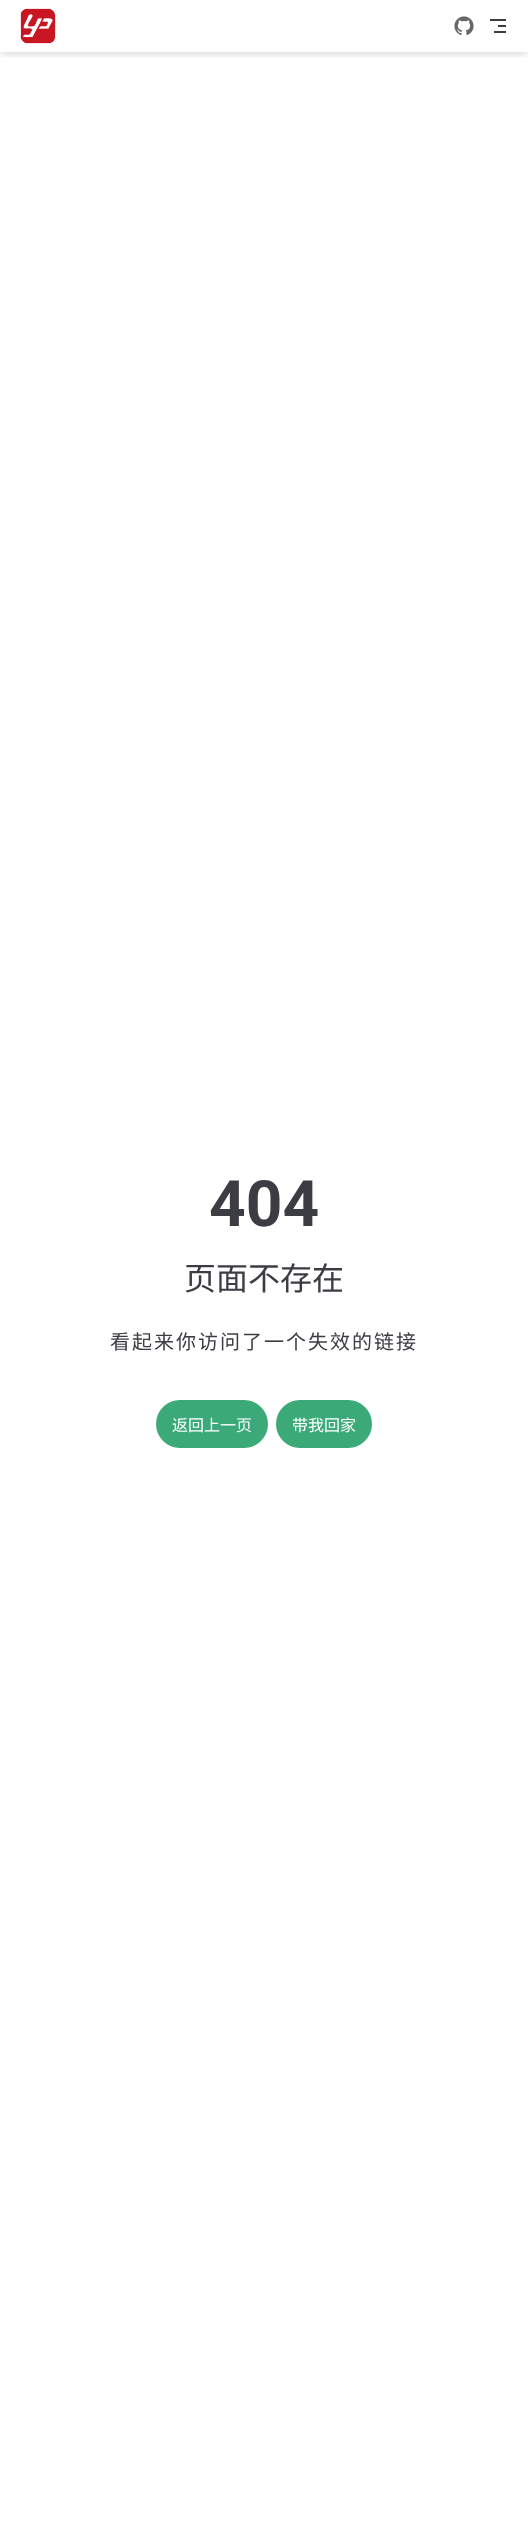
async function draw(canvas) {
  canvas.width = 528;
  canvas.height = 2541;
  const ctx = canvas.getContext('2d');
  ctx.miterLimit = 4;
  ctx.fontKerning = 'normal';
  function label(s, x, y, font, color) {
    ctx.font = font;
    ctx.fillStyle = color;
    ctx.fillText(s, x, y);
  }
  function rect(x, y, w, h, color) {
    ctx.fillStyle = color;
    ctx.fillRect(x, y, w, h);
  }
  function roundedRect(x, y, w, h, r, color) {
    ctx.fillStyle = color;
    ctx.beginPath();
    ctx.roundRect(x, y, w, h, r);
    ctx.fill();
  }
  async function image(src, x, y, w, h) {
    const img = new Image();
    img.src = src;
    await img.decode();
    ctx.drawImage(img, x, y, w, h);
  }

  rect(0, 0, 528, 2541, '#fff');
  ctx.save();
  ctx.beginPath();
  ctx.rect(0, 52, 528, 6);
  ctx.clip();
  ctx.fillStyle = '#00000026';
  ctx.filter = 'blur(4px)';
  ctx.beginPath();
  ctx.rect(0, 2, 528, 52);
  ctx.fill();
  ctx.filter = 'none';
  ctx.restore();
  await image('assets/img1.png', 20, 8, 36, 36);
  await image('assets/img2.png', 454, 16, 20, 19);
  rect(490, 19, 16, 2, '#3c3c43');
  rect(498, 25, 8, 2, '#3c3c43');
  rect(494, 31, 12, 2, '#3c3c43');
  label('404', 209, 1226, 'bold 64px Roboto', '#3c3c43');
  label('页面不存在', 184, 1290, '32px Noto Sans CJK SC', '#3c3c43');
  ctx.letterSpacing = '2px';
  label('看起来你访问了一个失效的链接', 110, 1349, '20px Noto Sans CJK SC', '#3c3c43');
  roundedRect(156, 1400, 112, 48, 24, '#3ca978');
  ctx.letterSpacing = '0px';
  label('返回上一页', 172, 1431, '16px Noto Sans CJK SC', '#fff');
  roundedRect(276, 1400, 96, 48, 24, '#3ca978');
  label('带我回家', 292, 1431, '16px Noto Sans CJK SC', '#fff');
}

draw(document.querySelector('canvas'));
